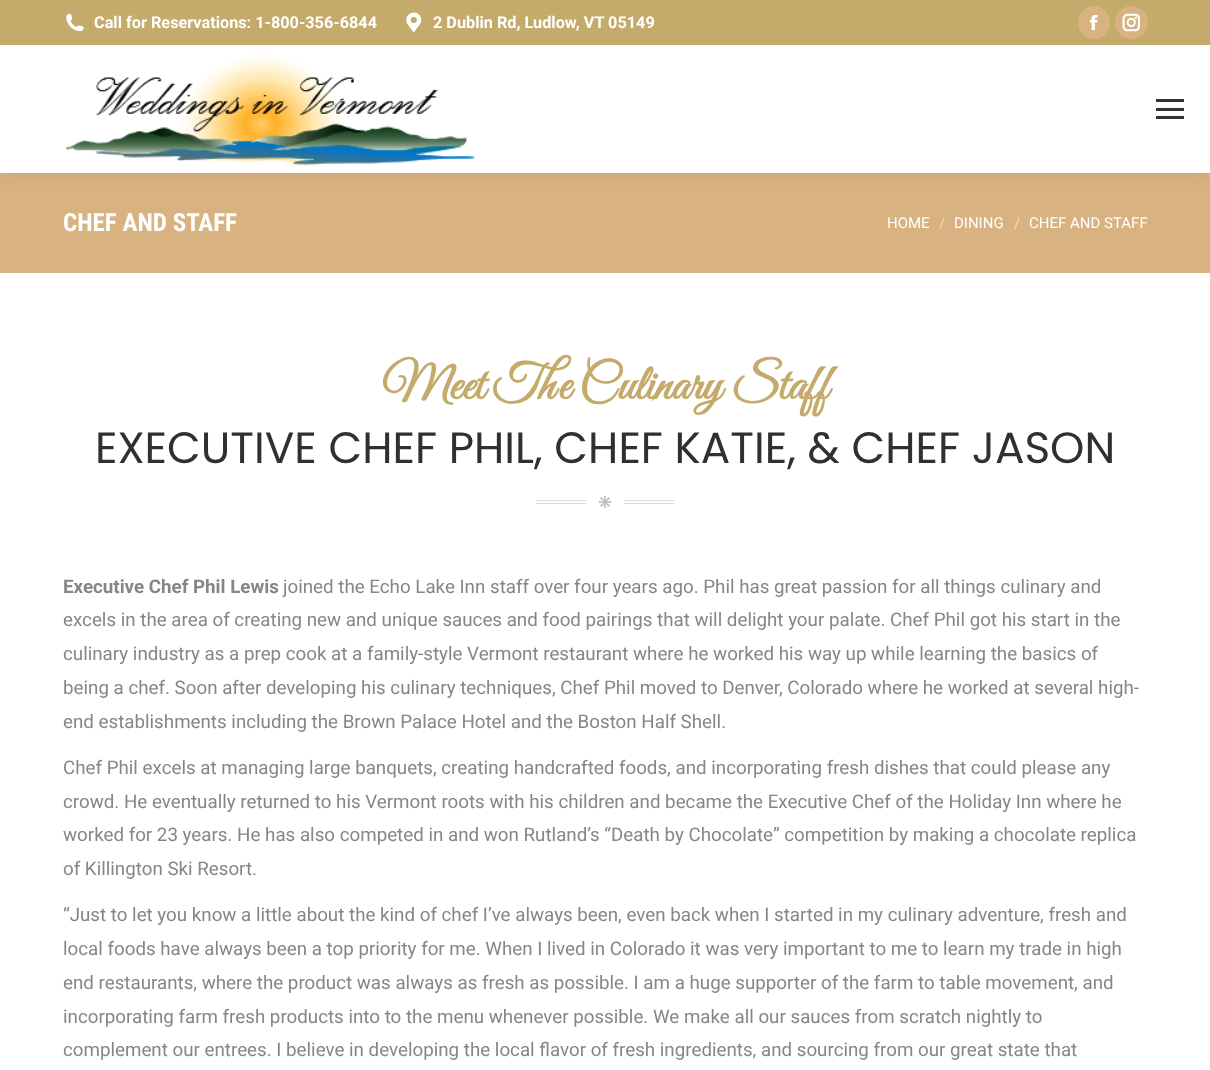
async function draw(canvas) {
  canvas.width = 1210;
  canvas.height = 1070;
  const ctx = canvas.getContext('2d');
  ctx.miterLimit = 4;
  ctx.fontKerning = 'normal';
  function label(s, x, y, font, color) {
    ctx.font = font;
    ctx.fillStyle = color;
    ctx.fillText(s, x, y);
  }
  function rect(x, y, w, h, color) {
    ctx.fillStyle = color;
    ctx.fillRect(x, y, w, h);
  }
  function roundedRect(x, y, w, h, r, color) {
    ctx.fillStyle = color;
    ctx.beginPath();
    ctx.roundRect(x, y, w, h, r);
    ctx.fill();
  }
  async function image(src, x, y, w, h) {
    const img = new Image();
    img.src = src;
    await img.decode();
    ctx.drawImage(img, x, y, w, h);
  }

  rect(0, 0, 1210, 1070, '#fff');
  rect(0, 173, 1210, 100, '#d8b280');
  ctx.fillStyle = '#00000012';
  ctx.filter = 'blur(9.5px)';
  ctx.beginPath();
  ctx.rect(-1, -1, 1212, 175);
  ctx.fill();
  ctx.filter = 'none';
  rect(0, 45, 1210, 128, '#fff');
  rect(0, 0, 1210, 45, '#c5ab6b');
  await image('assets/img1.png', 66, 13, 18, 19);
  label('Call for Reservations: 1-800-356-6844', 94, 28, 'bold 16.25px Roboto', '#fff');
  await image('assets/img2.png', 406, 12, 16, 21);
  label('2 Dublin Rd, Ludlow, VT 05149', 433, 28, 'bold 16.25px Roboto', '#fff');
  roundedRect(1078, 6, 32, 33, 16, '#d8b280');
  await image('assets/img3.png', 1090, 15, 8, 15);
  ctx.beginPath();
  ctx.arc(1131.5, 22.5, 16.5, 0, 2 * Math.PI);
  ctx.fill();
  await image('assets/img4.png', 1122, 13, 18, 19);
  await image('assets/img5.png', 66, 54, 410, 113);
  rect(1156, 99, 28, 3, '#333');
  rect(1156, 108, 28, 3, '#333');
  rect(1156, 116, 28, 3, '#333');
  label('CHEF AND STAFF', 63, 231, 'bold 25px Roboto Condensed', '#fff');
  label('HOME', 887, 228, '15px Roboto', '#fff');
  label('/', 939, 228, '15px Roboto', '#ecd9c0');
  label('DINING', 954, 228, '15px Roboto', '#fff');
  label('/', 1014, 228, '15px Roboto', '#ecd9c0');
  label('CHEF AND STAFF', 1029, 228, '15px Roboto', '#fff');
  label('Meet The Culinary Staff', 382, 399, 'bold 50px Great Vibes', '#c5ab6b');
  label('EXECUTIVE CHEF PHIL, CHEF KATIE, & CHEF JASON', 95, 463, '43.75px Poppins', '#303030');
  rect(536, 500, 50, 1, '#d9d9d9');
  rect(536, 503, 50, 1, '#d9d9d9');
  await image('assets/img6.png', 598, 495, 14, 13);
  rect(624, 500, 50, 1, '#d9d9d9');
  rect(624, 503, 50, 1, '#d9d9d9');
  label('Executive Chef Phil Lewis', 63, 593, 'bold 18.75px Roboto', '#85868c');
  label('joined the Echo Lake Inn staff over four years ago. Phil has great passion for all things culinary and', 283, 593, '18.75px Roboto', '#85868c');
  label('excels in the area of creating new and unique sauces and food pairings that will delight your palate. Chef Phil got his start in the', 63, 626, '18.75px Roboto', '#85868c');
  label('culinary industry as a prep cook at a family-style Vermont restaurant where he worked his way up while learning the basics of', 63, 660, '18.75px Roboto', '#85868c');
  label('being a chef. Soon after developing his culinary techniques, Chef Phil moved to Denver, Colorado where he worked at several high-', 63, 694, '18.75px Roboto', '#85868c');
  label('end establishments including the Brown Palace Hotel and the Boston Half Shell.', 63, 728, '18.75px Roboto', '#85868c');
  label('Chef Phil excels at managing large banquets, creating handcrafted foods, and incorporating fresh dishes that could please any', 63, 774, '18.75px Roboto', '#85868c');
  label('crowd. He eventually returned to his Vermont roots with his children and became the Executive Chef of the Holiday Inn where he', 63, 808, '18.75px Roboto', '#85868c');
  label('worked for 23 years. He has also competed in and won Rutland’s “Death by Chocolate” competition by making a chocolate replica', 63, 841, '18.75px Roboto', '#85868c');
  label('of Killington Ski Resort.', 63, 875, '18.75px Roboto', '#85868c');
  label('“Just to let you know a little about the kind of chef I’ve always been, even back when I started in my culinary adventure, fresh and', 63, 921, '18.75px Roboto', '#85868c');
  label('local foods have always been a top priority for me. When I lived in Colorado it was very important to me to learn my trade in high', 63, 955, '18.75px Roboto', '#85868c');
  label('end restaurants, where the product was always as fresh as possible. I am a huge supporter of the farm to table movement, and', 63, 989, '18.75px Roboto', '#85868c');
  label('incorporating farm fresh products into to the menu whenever possible. We make all our sauces from scratch nightly to', 63, 1023, '18.75px Roboto', '#85868c');
  label('complement our entrees. I believe in developing the local flavor of fresh ingredients, and sourcing from our great state that', 63, 1056, '18.75px Roboto', '#85868c');
}

draw(document.querySelector('canvas'));
